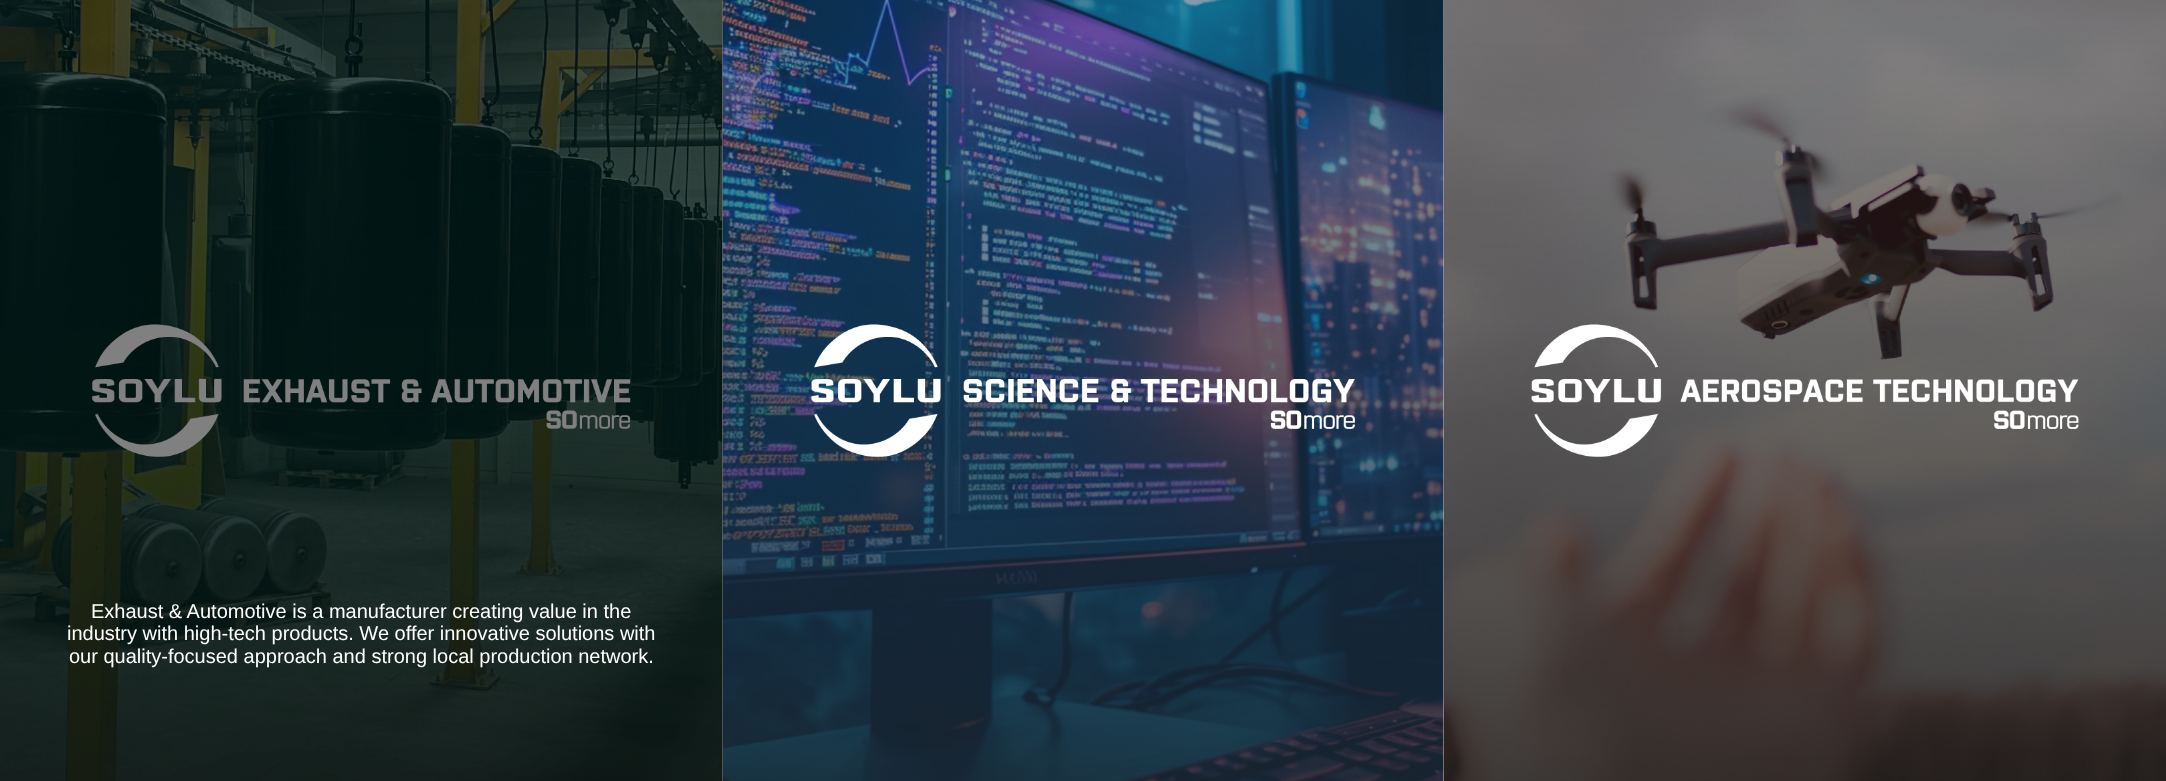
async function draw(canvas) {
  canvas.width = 2166;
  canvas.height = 781;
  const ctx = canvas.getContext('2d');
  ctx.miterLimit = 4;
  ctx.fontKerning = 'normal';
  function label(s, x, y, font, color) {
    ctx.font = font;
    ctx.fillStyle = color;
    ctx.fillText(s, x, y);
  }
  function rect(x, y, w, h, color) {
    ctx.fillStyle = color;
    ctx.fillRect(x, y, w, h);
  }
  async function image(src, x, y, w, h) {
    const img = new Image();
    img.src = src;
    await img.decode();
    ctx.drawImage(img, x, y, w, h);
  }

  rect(0, 0, 2166, 781, '#f0f0f0');
  rect(722, 0, 1, 781, '#787878');
  await image('assets/img1.png', 0, 0, 723, 781);
  label('Exhaust & Automotive is a manufacturer creating value in the', 91, 618, '20px Liberation Sans', '#fff');
  label('industry with high-tech products. We offer innovative solutions with', 67, 640, '20px Liberation Sans', '#fff');
  label('our quality-focused approach and strong local production network.', 69, 663, '20px Liberation Sans', '#fff');
  await image('assets/img2.png', 722, 0, 722, 781);
  await image('assets/img3.png', 1443, 0, 723, 781);
}

draw(document.querySelector('canvas'));
